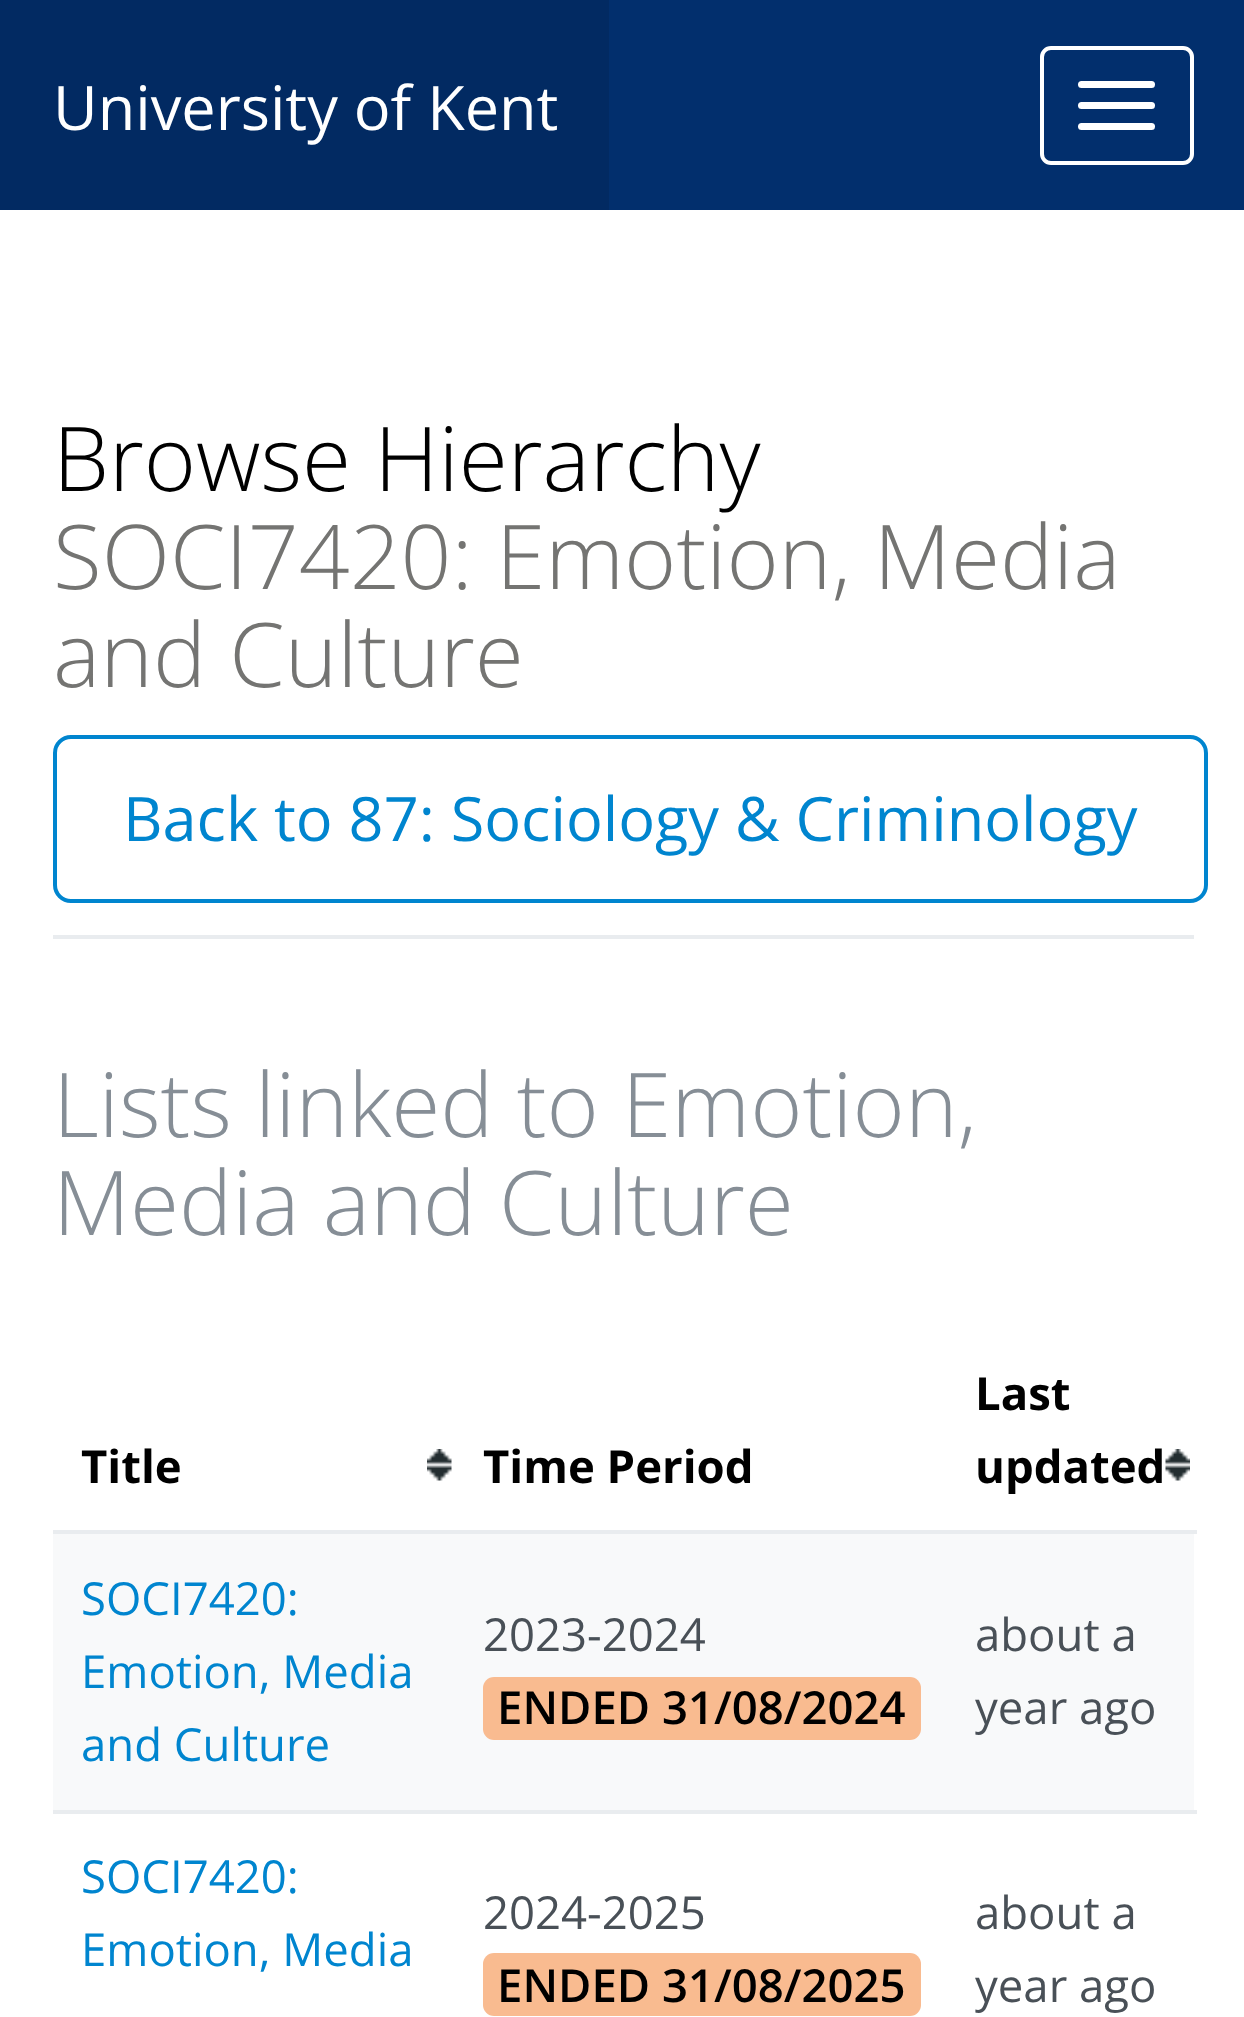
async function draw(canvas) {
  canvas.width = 1244;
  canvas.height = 2017;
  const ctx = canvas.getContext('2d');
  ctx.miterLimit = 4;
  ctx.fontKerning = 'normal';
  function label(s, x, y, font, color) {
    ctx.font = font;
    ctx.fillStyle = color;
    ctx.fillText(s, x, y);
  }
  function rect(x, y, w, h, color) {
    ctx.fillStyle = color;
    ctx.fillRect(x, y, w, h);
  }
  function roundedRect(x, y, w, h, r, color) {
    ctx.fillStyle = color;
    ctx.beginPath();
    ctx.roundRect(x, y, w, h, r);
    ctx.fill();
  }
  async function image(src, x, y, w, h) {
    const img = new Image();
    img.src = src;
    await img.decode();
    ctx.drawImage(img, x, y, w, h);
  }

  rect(0, 0, 1244, 2017, '#fff');
  rect(609, 0, 635, 210, '#022f6d');
  rect(0, 0, 609, 210, '#022a62');
  label('University of Kent', 53, 130, '61.25px Open Sans', '#fff');
  ctx.beginPath();
  ctx.roundRect(1042, 48, 150, 115, 9);
  ctx.strokeStyle = '#fff';
  ctx.lineWidth = 4;
  ctx.stroke();
  roundedRect(1078, 81, 77, 7, 3.5, '#fff');
  roundedRect(1078, 102, 77, 7, 3.5, '#fff');
  roundedRect(1078, 123, 77, 7, 3.5, '#fff');
  rect(53, 935, 1141, 4, '#e9ecef');
  label('Browse Hierarchy', 53, 491, '300 89.25px Open Sans', '#000');
  label('SOCI7420: Emotion, Media', 53, 589, '300 89.25px Open Sans', '#747472');
  label('and Culture', 53, 687, '300 89.25px Open Sans', '#747472');
  ctx.beginPath();
  ctx.roundRect(55, 737, 1151, 164, 16);
  ctx.strokeStyle = '#0085cf';
  ctx.stroke();
  label('Back to 87: Sociology & Criminology', 123, 841, '61.25px Open Sans', '#0085cf');
  label('Lists linked to Emotion,', 53, 1137, '300 89.25px Open Sans', '#868e96');
  label('Media and Culture', 53, 1235, '300 89.25px Open Sans', '#868e96');
  await image('assets/img1.png', 427, 1449, 25, 32);
  label('Title', 81, 1483, 'bold 45.5px Open Sans', '#000');
  label('Time Period', 483, 1483, 'bold 45.5px Open Sans', '#000');
  await image('assets/img2.png', 1165, 1449, 25, 32);
  label('Last', 975, 1410, 'bold 45.5px Open Sans', '#000');
  label('updated', 975, 1483, 'bold 45.5px Open Sans', '#000');
  rect(53, 1534, 1141, 276, '#f8f9fa');
  label('SOCI7420:', 81, 1615, '45.5px Open Sans', '#0085cf');
  label('Emotion, Media', 81, 1688, '45.5px Open Sans', '#0085cf');
  label('and Culture', 81, 1761, '45.5px Open Sans', '#0085cf');
  label('2023-2024', 483, 1651, '45.5px Open Sans', '#495057');
  roundedRect(483, 1677, 438, 63, 11, '#f9bb90');
  label('ENDED 31/08/2024', 497, 1724, '600 45.5px Open Sans', '#000');
  rect(53, 1530, 1144, 4, '#e9ecef');
  label('about a', 975, 1651, '45.5px Open Sans', '#495057');
  label('year ago', 975, 1724, '45.5px Open Sans', '#495057');
  label('SOCI7420:', 81, 1893, '45.5px Open Sans', '#0085cf');
  label('Emotion, Media', 81, 1966, '45.5px Open Sans', '#0085cf');
  label('2024-2025', 483, 1929, '45.5px Open Sans', '#495057');
  roundedRect(483, 1953, 438, 63, 11, '#f9bb90');
  label('ENDED 31/08/2025', 497, 2002, '600 45.5px Open Sans', '#000');
  rect(53, 1810, 1144, 4, '#e9ecef');
  label('about a', 975, 1929, '45.5px Open Sans', '#495057');
  label('year ago', 975, 2002, '45.5px Open Sans', '#495057');
}

draw(document.querySelector('canvas'));
